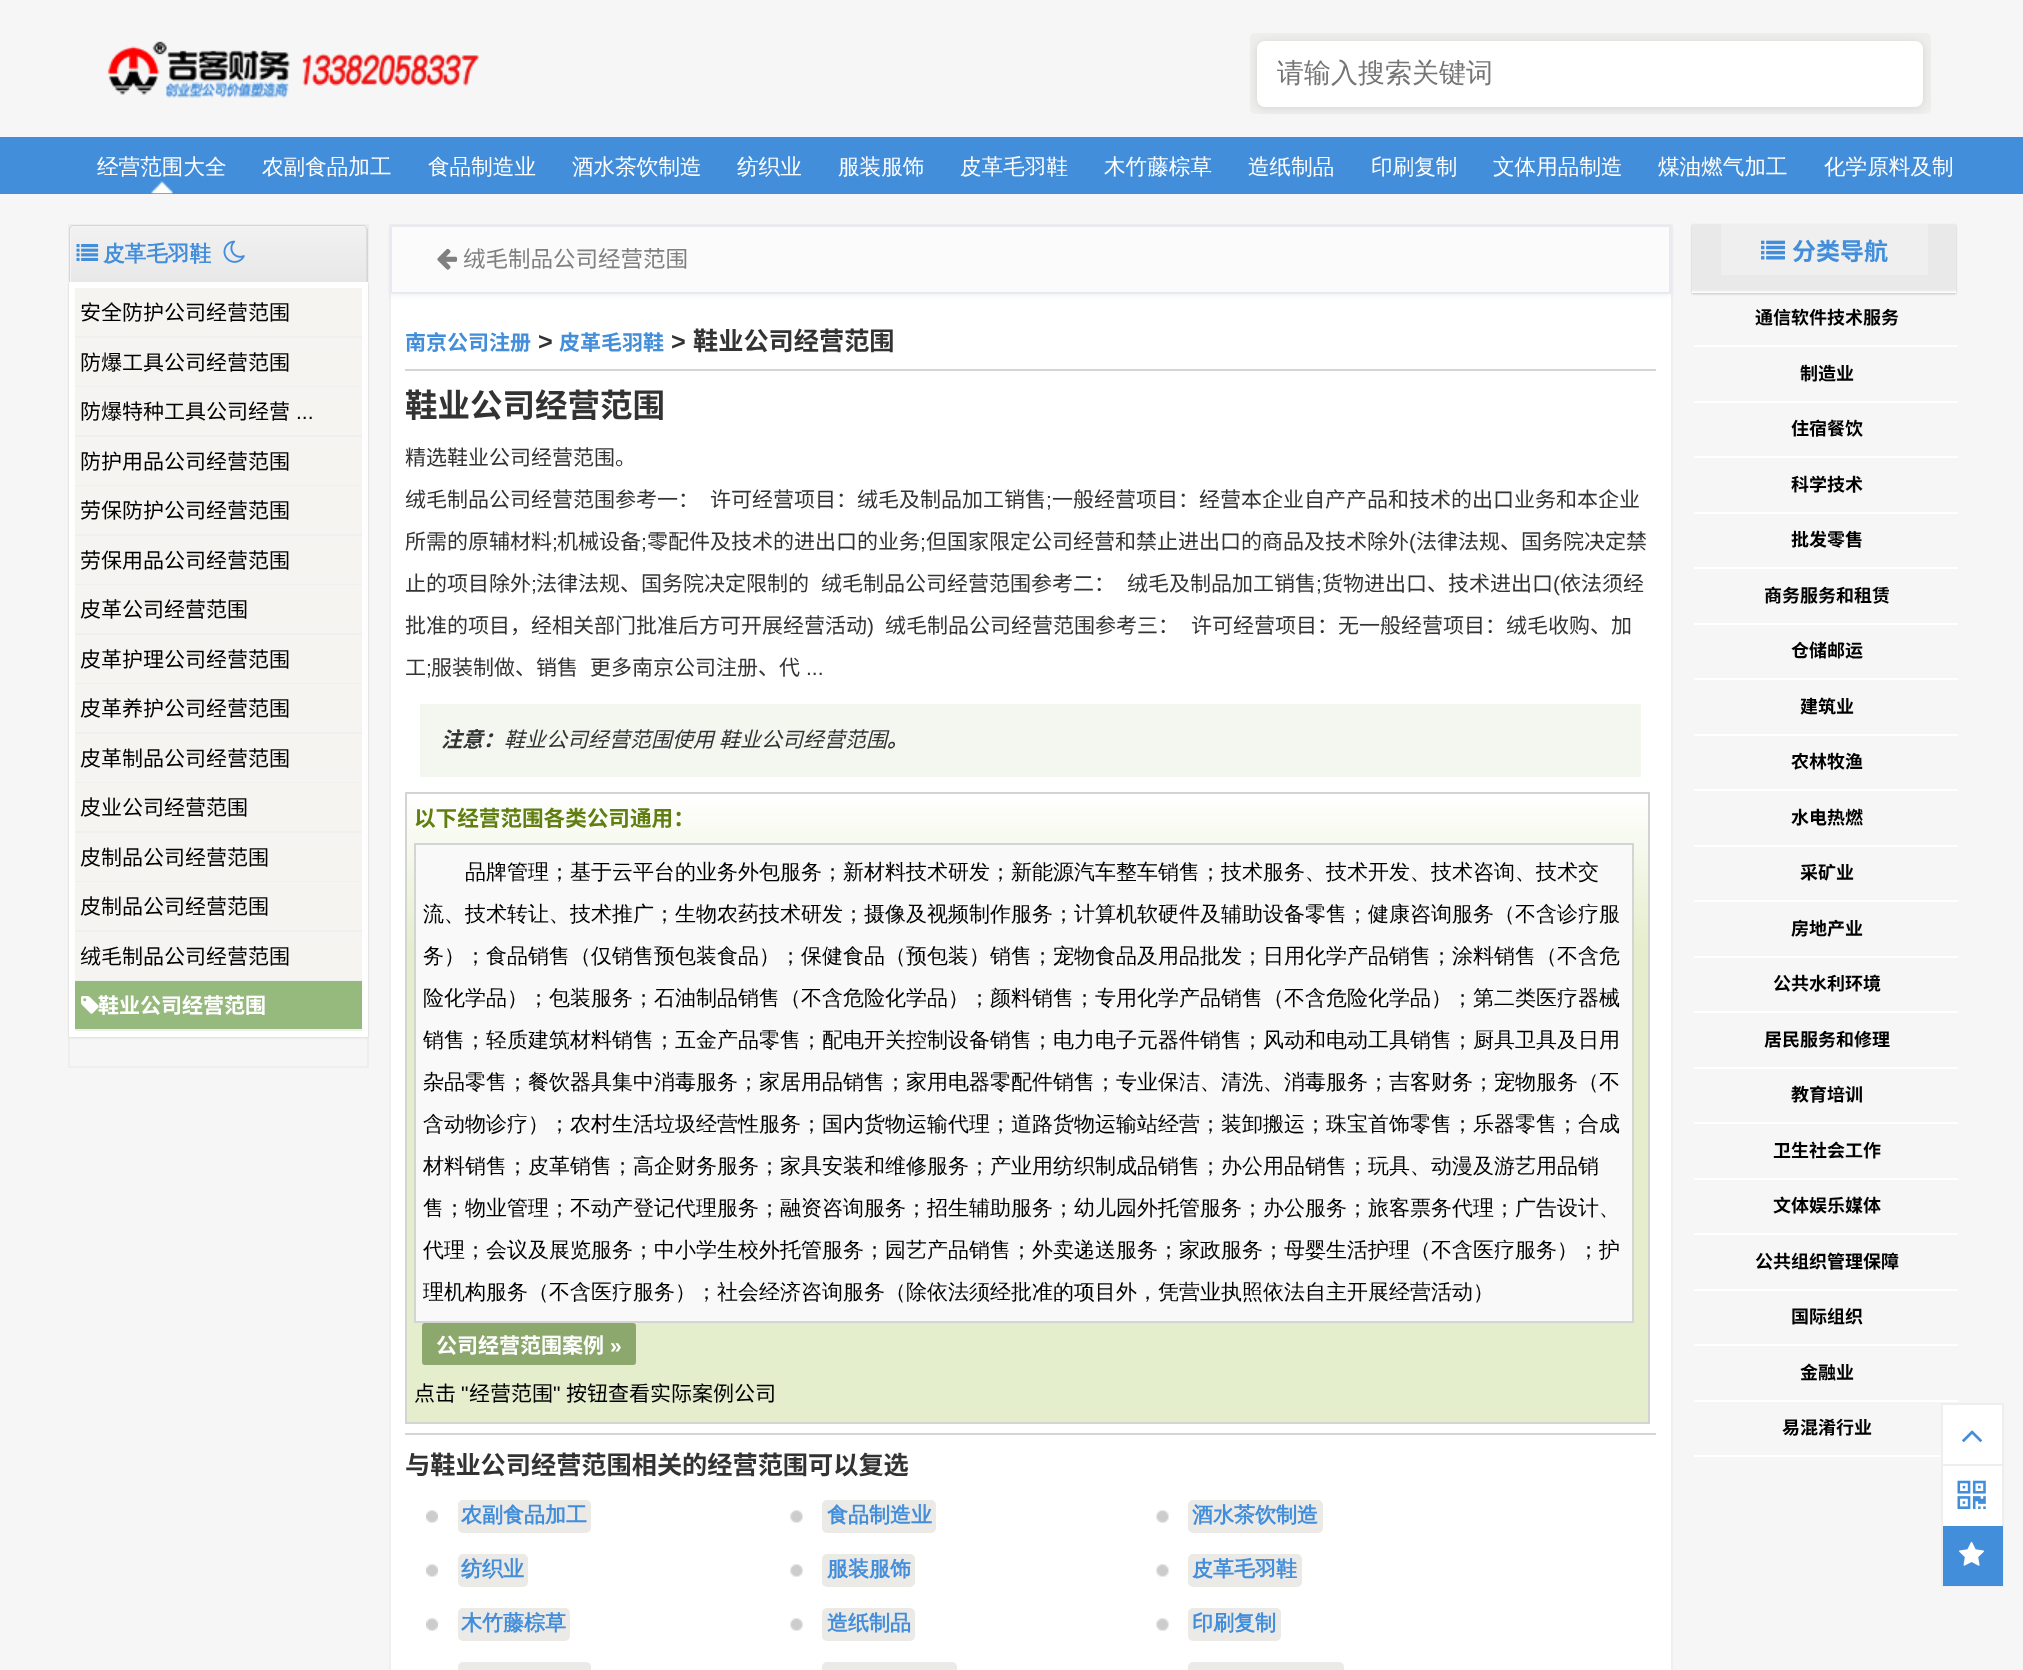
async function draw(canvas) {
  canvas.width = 2023;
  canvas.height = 1670;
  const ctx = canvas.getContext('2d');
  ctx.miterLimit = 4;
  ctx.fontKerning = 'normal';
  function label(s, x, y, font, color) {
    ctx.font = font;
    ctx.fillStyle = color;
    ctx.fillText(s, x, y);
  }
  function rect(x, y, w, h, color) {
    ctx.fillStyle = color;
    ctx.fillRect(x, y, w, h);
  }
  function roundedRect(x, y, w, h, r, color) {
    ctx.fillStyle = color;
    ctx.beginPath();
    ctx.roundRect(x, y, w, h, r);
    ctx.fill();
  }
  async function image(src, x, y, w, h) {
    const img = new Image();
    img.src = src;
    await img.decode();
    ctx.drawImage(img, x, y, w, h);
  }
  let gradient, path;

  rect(0, 0, 2023, 1670, '#f6f6f6');
  await image('assets/img1.png', 107, 41, 372, 57);
  roundedRect(1250, 33, 681, 81, 5, '#eeefed');
  ctx.fillStyle = '#0000001a';
  ctx.filter = 'blur(4px)';
  ctx.beginPath();
  ctx.roundRect(1257, 42, 666, 66, 8);
  ctx.fill();
  ctx.filter = 'none';
  roundedRect(1257, 41, 666, 66, 8, '#fff');
  label('请输入搜索关键词', 1277, 82, '500 27px WenQuanYi Zen Hei', '#757575');
  rect(0, 137, 2023, 57, '#438edb');
  label('经营范围大全', 97, 174, '500 21.6px WenQuanYi Zen Hei', '#fff');
  label('农副食品加工', 262, 174, '500 21.6px WenQuanYi Zen Hei', '#fff');
  label('食品制造业', 428, 174, '500 21.6px WenQuanYi Zen Hei', '#fff');
  label('酒水茶饮制造', 572, 174, '500 21.6px WenQuanYi Zen Hei', '#fff');
  label('纺织业', 737, 174, '500 21.6px WenQuanYi Zen Hei', '#fff');
  label('服装服饰', 838, 174, '500 21.6px WenQuanYi Zen Hei', '#fff');
  label('皮革毛羽鞋', 960, 174, '500 21.6px WenQuanYi Zen Hei', '#fff');
  label('木竹藤棕草', 1104, 174, '500 21.6px WenQuanYi Zen Hei', '#fff');
  label('造纸制品', 1248, 174, '500 21.6px WenQuanYi Zen Hei', '#fff');
  label('印刷复制', 1371, 174, '500 21.6px WenQuanYi Zen Hei', '#fff');
  label('文体用品制造', 1493, 174, '500 21.6px WenQuanYi Zen Hei', '#fff');
  label('煤油燃气加工', 1658, 174, '500 21.6px WenQuanYi Zen Hei', '#fff');
  label('化学原料及制', 1824, 174, '500 21.6px WenQuanYi Zen Hei', '#fff');
  await image('assets/img2.png', 151, 181, 22, 13);
  ctx.strokeStyle = '#eee';
  ctx.lineWidth = 2;
  ctx.strokeRect(69, 225, 299, 842);
  ctx.fillStyle = '#0000001a';
  ctx.filter = 'blur(1px)';
  ctx.beginPath();
  ctx.rect(69, 284, 299, 754);
  ctx.fill();
  ctx.filter = 'none';
  gradient = ctx.createLinearGradient(218, 291, 218, 217);
  gradient.addColorStop(0, '#e6e6e6');
  gradient.addColorStop(1, '#f3f3f3');
  ctx.fillStyle = gradient;
  ctx.beginPath();
  ctx.roundRect(71, 227, 295, 55, [3, 3, 0, 0]);
  ctx.fill();
  ctx.fillStyle = '#0000001a';
  path = new Path2D('M74 225H363C365 225 368 227 368 230V282H69V230C69 227 71 225 74 225ZM74 226H363C365 226 366 228 366 230V282H70V230C70 228 72 226 74 226Z');
  ctx.fill(path, 'evenodd');
  await image('assets/img3.png', 76, 244, 23, 17);
  label('皮革毛羽鞋', 103, 261, 'bold 21.6px WenQuanYi Zen Hei', '#438edb');
  await image('assets/img4.png', 223, 240, 22, 23);
  rect(69, 282, 299, 755, '#fff');
  rect(75, 288, 287, 48, '#f6f4f0');
  rect(75, 336, 287, 2, '#efefef');
  label('安全防护公司经营范围', 80, 320, '21px Noto Sans CJK SC', '#000');
  rect(75, 338, 287, 48, '#f6f4f0');
  rect(75, 386, 287, 1, '#efefef');
  label('防爆工具公司经营范围', 80, 370, '21px Noto Sans CJK SC', '#000');
  rect(75, 387, 287, 48, '#f6f4f0');
  rect(75, 435, 287, 2, '#efefef');
  label('防爆特种工具公司经营', 80, 419, '21px Noto Sans CJK SC', '#000');
  label('...', 296, 419, '21px Liberation Sans', '#000');
  rect(75, 437, 287, 48, '#f6f4f0');
  rect(75, 485, 287, 1, '#efefef');
  label('防护用品公司经营范围', 80, 469, '21px Noto Sans CJK SC', '#000');
  rect(75, 486, 287, 48, '#f6f4f0');
  rect(75, 534, 287, 2, '#efefef');
  label('劳保防护公司经营范围', 80, 518, '21px Noto Sans CJK SC', '#000');
  rect(75, 536, 287, 48, '#f6f4f0');
  rect(75, 584, 287, 1, '#efefef');
  label('劳保用品公司经营范围', 80, 568, '21px Noto Sans CJK SC', '#000');
  rect(75, 585, 287, 48, '#f6f4f0');
  rect(75, 633, 287, 2, '#efefef');
  label('皮革公司经营范围', 80, 617, '21px Noto Sans CJK SC', '#000');
  rect(75, 635, 287, 48, '#f6f4f0');
  rect(75, 683, 287, 1, '#efefef');
  label('皮革护理公司经营范围', 80, 667, '21px Noto Sans CJK SC', '#000');
  rect(75, 684, 287, 48, '#f6f4f0');
  rect(75, 732, 287, 2, '#efefef');
  label('皮革养护公司经营范围', 80, 716, '21px Noto Sans CJK SC', '#000');
  rect(75, 734, 287, 48, '#f6f4f0');
  rect(75, 782, 287, 1, '#efefef');
  label('皮革制品公司经营范围', 80, 766, '21px Noto Sans CJK SC', '#000');
  rect(75, 783, 287, 48, '#f6f4f0');
  rect(75, 831, 287, 2, '#efefef');
  label('皮业公司经营范围', 80, 815, '21px Noto Sans CJK SC', '#000');
  rect(75, 833, 287, 48, '#f6f4f0');
  rect(75, 881, 287, 1, '#efefef');
  label('皮制品公司经营范围', 80, 865, '21px Noto Sans CJK SC', '#000');
  rect(75, 882, 287, 48, '#f6f4f0');
  rect(75, 930, 287, 2, '#efefef');
  label('皮制品公司经营范围', 80, 914, '21px Noto Sans CJK SC', '#000');
  rect(75, 932, 287, 48, '#f6f4f0');
  rect(75, 980, 287, 1, '#efefef');
  label('绒毛制品公司经营范围', 80, 964, '21px Noto Sans CJK SC', '#000');
  rect(75, 981, 287, 48, '#96b97d');
  rect(75, 1029, 287, 2, '#efefef');
  await image('assets/img5.png', 81, 996, 18, 18);
  label('鞋业公司经营范围', 98, 1013, 'bold 21px Noto Sans CJK SC', '#fff');
  rect(391, 294, 1280, 1376, '#fff');
  rect(389, 224, 1284, 1, '#efefef');
  rect(1671, 224, 2, 1446, '#efefef');
  rect(389, 224, 2, 1446, '#efefef');
  ctx.fillStyle = '#0025370d';
  ctx.filter = 'blur(2px)';
  ctx.beginPath();
  ctx.rect(390, 227, 1281, 69);
  ctx.fill();
  ctx.filter = 'none';
  ctx.fillStyle = '#fbfbfb';
  ctx.beginPath();
  ctx.rect(391, 226, 1279, 67);
  ctx.fill();
  ctx.strokeStyle = '#e7eaf1';
  ctx.stroke();
  await image('assets/img6.png', 437, 248, 21, 22);
  label('绒毛制品公司经营范围', 463, 267, '22.5px Noto Sans CJK SC', '#808080');
  label('南京公司注册', 405, 350, 'bold 21px Noto Sans CJK SC', '#438edb');
  label('>', 538, 350, 'bold 25.2px Liberation Sans', '#333');
  label('皮革毛羽鞋', 559, 350, 'bold 21px Noto Sans CJK SC', '#438edb');
  label('>', 671, 350, 'bold 25.2px Liberation Sans', '#333');
  label('鞋业公司经营范围', 693, 350, 'bold 25.2px Noto Sans CJK SC', '#333');
  rect(405, 369, 1251, 2, '#d4d4d4');
  label('鞋业公司经营范围', 405, 417, 'bold 32.5px Noto Sans CJK SC', '#333');
  label('精选鞋业公司经营范围。', 405, 465, '21px Noto Sans CJK SC', '#333');
  label('绒毛制品公司经营范围参考一：', 405, 507, '21px Noto Sans CJK SC', '#333');
  label('许可经营项目：绒毛及制品加工销售', 710, 507, '21px Noto Sans CJK SC', '#333');
  label(';', 1046, 507, '21px Liberation Sans', '#333');
  label('一般经营项目：经营本企业自产产品和技术的出口业务和本企业', 1052, 507, '21px Noto Sans CJK SC', '#333');
  label('所需的原辅材料', 405, 549, '21px Noto Sans CJK SC', '#333');
  label(';', 552, 549, '21px Liberation Sans', '#333');
  label('机械设备', 557, 549, '21px Noto Sans CJK SC', '#333');
  label(';', 641, 549, '21px Liberation Sans', '#333');
  label('零配件及技术的进出口的业务', 647, 549, '21px Noto Sans CJK SC', '#333');
  label(';', 920, 549, '21px Liberation Sans', '#333');
  label('但国家限定公司经营和禁止进出口的商品及技术除外', 926, 549, '21px Noto Sans CJK SC', '#333');
  label('(', 1409, 549, '21px Liberation Sans', '#333');
  label('法律法规、国务院决定禁', 1416, 549, '21px Noto Sans CJK SC', '#333');
  label('止的项目除外', 405, 591, '21px Noto Sans CJK SC', '#333');
  label(';', 531, 591, '21px Liberation Sans', '#333');
  label('法律法规、国务院决定限制的', 536, 591, '21px Noto Sans CJK SC', '#333');
  label('绒毛制品公司经营范围参考二：', 821, 591, '21px Noto Sans CJK SC', '#333');
  label('绒毛及制品加工销售', 1127, 591, '21px Noto Sans CJK SC', '#333');
  label(';', 1316, 591, '21px Liberation Sans', '#333');
  label('货物进出口、技术进出口', 1322, 591, '21px Noto Sans CJK SC', '#333');
  label('(', 1553, 591, '21px Liberation Sans', '#333');
  label('依法须经', 1560, 591, '21px Noto Sans CJK SC', '#333');
  label('批准的项目，经相关部门批准后方可开展经营活动', 405, 633, '21px Noto Sans CJK SC', '#333');
  label(')', 867, 633, '21px Liberation Sans', '#333');
  label('绒毛制品公司经营范围参考三：', 885, 633, '21px Noto Sans CJK SC', '#333');
  label('许可经营项目：无一般经营项目：绒毛收购、加', 1191, 633, '21px Noto Sans CJK SC', '#333');
  label('工', 405, 675, '21px Noto Sans CJK SC', '#333');
  label(';', 426, 675, '21px Liberation Sans', '#333');
  label('服装制做、销售', 431, 675, '21px Noto Sans CJK SC', '#333');
  label('更多南京公司注册、代', 590, 675, '21px Noto Sans CJK SC', '#333');
  label('...', 806, 675, '21px Liberation Sans', '#333');
  rect(420, 704, 1221, 73, '#f3f7f0');
  label('注意：', 441, 747, 'italic bold 21px Noto Sans CJK SC', '#333');
  label('鞋业公司经营范围使用', 504, 747, 'italic 21px Noto Sans CJK SC', '#333');
  label('鞋业公司经营范围', 719, 747, 'italic 21px Noto Sans CJK SC', '#333');
  label('。', 887, 747, 'italic bold 21px Noto Sans CJK SC', '#333');
  gradient = ctx.createLinearGradient(1028, 794, 1028, 1422);
  gradient.addColorStop(0, '#fff');
  gradient.addColorStop(0.24, '#e5eecc');
  ctx.fillStyle = gradient;
  ctx.fillRect(407, 801, 1241, 621);
  ctx.strokeStyle = '#d4d4d4';
  ctx.strokeRect(406, 793, 1243, 630);
  label('以下经营范围各类公司通用：', 414, 826, 'bold 21.6px Noto Sans CJK SC', '#617f10');
  ctx.fillStyle = '#f9f9f9';
  ctx.beginPath();
  ctx.rect(415, 844, 1218, 478);
  ctx.fill();
  ctx.stroke();
  label('品牌管理；基于云平台的业务外包服务；新材料技术研发；新能源汽车整车销售；技术服务、技术开发、技术咨询、技术交', 465, 879, '500 21px WenQuanYi Zen Hei', '#000');
  label('流、技术转让、技术推广；生物农药技术研发；摄像及视频制作服务；计算机软硬件及辅助设备零售；健康咨询服务（不含诊疗服', 423, 921, '500 21px WenQuanYi Zen Hei', '#000');
  label('务）；食品销售（仅销售预包装食品）；保健食品（预包装）销售；宠物食品及用品批发；日用化学产品销售；涂料销售（不含危', 423, 963, '500 21px WenQuanYi Zen Hei', '#000');
  label('险化学品）；包装服务；石油制品销售（不含危险化学品）；颜料销售；专用化学产品销售（不含危险化学品）；第二类医疗器械', 423, 1005, '500 21px WenQuanYi Zen Hei', '#000');
  label('销售；轻质建筑材料销售；五金产品零售；配电开关控制设备销售；电力电子元器件销售；风动和电动工具销售；厨具卫具及日用', 423, 1047, '500 21px WenQuanYi Zen Hei', '#000');
  label('杂品零售；餐饮器具集中消毒服务；家居用品销售；家用电器零配件销售；专业保洁、清洗、消毒服务；吉客财务；宠物服务（不', 423, 1089, '500 21px WenQuanYi Zen Hei', '#000');
  label('含动物诊疗）；农村生活垃圾经营性服务；国内货物运输代理；道路货物运输站经营；装卸搬运；珠宝首饰零售；乐器零售；合成', 423, 1131, '500 21px WenQuanYi Zen Hei', '#000');
  label('材料销售；皮革销售；高企财务服务；家具安装和维修服务；产业用纺织制成品销售；办公用品销售；玩具、动漫及游艺用品销', 423, 1173, '500 21px WenQuanYi Zen Hei', '#000');
  label('售；物业管理；不动产登记代理服务；融资咨询服务；招生辅助服务；幼儿园外托管服务；办公服务；旅客票务代理；广告设计、', 423, 1215, '500 21px WenQuanYi Zen Hei', '#000');
  label('代理；会议及展览服务；中小学生校外托管服务；园艺产品销售；外卖递送服务；家政服务；母婴生活护理（不含医疗服务）；护', 423, 1257, '500 21px WenQuanYi Zen Hei', '#000');
  label('理机构服务（不含医疗服务）；社会经济咨询服务（除依法须经批准的项目外，凭营业执照依法自主开展经营活动）', 423, 1299, '500 21px WenQuanYi Zen Hei', '#000');
  roundedRect(422, 1323, 214, 42, 3, '#8ca86d');
  label('公司经营范围案例', 436, 1353, 'bold 21px Noto Sans CJK SC', '#fff');
  label('»', 610, 1353, 'bold 21px Liberation Sans', '#fff');
  label('点击', 414, 1401, '21px Noto Sans CJK SC', '#000');
  label('"', 461, 1401, '21px Liberation Sans', '#000');
  label('经营范围', 469, 1401, '21px Noto Sans CJK SC', '#000');
  label('"', 553, 1401, '21px Liberation Sans', '#000');
  label('按钮查看实际案例公司', 566, 1401, '21px Noto Sans CJK SC', '#000');
  rect(405, 1433, 1251, 2, '#d4d4d4');
  label('与鞋业公司经营范围相关的经营范围可以复选', 405, 1474, 'bold 25.2px Noto Sans CJK SC', '#333');
  await image('assets/img7.png', 426, 1510, 12, 13);
  roundedRect(458, 1500, 133, 33, 5, '#eceae6');
  label('农副食品加工', 461, 1522, 'bold 21px WenQuanYi Zen Hei', '#438edb');
  await image('assets/img8.png', 790, 1510, 13, 13);
  roundedRect(822, 1500, 114, 33, 5, '#eceae6');
  label('食品制造业', 827, 1522, 'bold 21px WenQuanYi Zen Hei', '#438edb');
  await image('assets/img9.png', 1156, 1510, 13, 13);
  roundedRect(1188, 1500, 135, 33, 5, '#eceae6');
  label('酒水茶饮制造', 1192, 1522, 'bold 21px WenQuanYi Zen Hei', '#438edb');
  await image('assets/img7.png', 426, 1564, 12, 13);
  roundedRect(458, 1554, 70, 33, 5, '#eceae6');
  label('纺织业', 461, 1576, 'bold 21px WenQuanYi Zen Hei', '#438edb');
  await image('assets/img8.png', 790, 1564, 13, 13);
  roundedRect(822, 1554, 93, 33, 5, '#eceae6');
  label('服装服饰', 827, 1576, 'bold 21px WenQuanYi Zen Hei', '#438edb');
  await image('assets/img9.png', 1156, 1564, 13, 13);
  roundedRect(1188, 1554, 114, 33, 5, '#eceae6');
  label('皮革毛羽鞋', 1192, 1576, 'bold 21px WenQuanYi Zen Hei', '#438edb');
  await image('assets/img7.png', 426, 1618, 12, 13);
  roundedRect(458, 1608, 112, 33, 5, '#eceae6');
  label('木竹藤棕草', 461, 1630, 'bold 21px WenQuanYi Zen Hei', '#438edb');
  await image('assets/img8.png', 790, 1618, 13, 13);
  roundedRect(822, 1608, 93, 33, 5, '#eceae6');
  label('造纸制品', 827, 1630, 'bold 21px WenQuanYi Zen Hei', '#438edb');
  await image('assets/img9.png', 1156, 1618, 13, 13);
  roundedRect(1188, 1608, 93, 33, 5, '#eceae6');
  label('印刷复制', 1192, 1630, 'bold 21px WenQuanYi Zen Hei', '#438edb');
  roundedRect(458, 1662, 133, 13, 5, '#eceae6');
  roundedRect(822, 1662, 135, 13, 5, '#eceae6');
  roundedRect(1188, 1662, 156, 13, 5, '#eceae6');
  ctx.fillStyle = '#0000001a';
  ctx.filter = 'blur(1px)';
  ctx.beginPath();
  ctx.rect(1692, 225, 264, 69);
  ctx.fill();
  ctx.filter = 'none';
  ctx.filter = 'blur(1px)';
  ctx.beginPath();
  ctx.rect(1692, 291, 264, 3);
  ctx.fill();
  ctx.filter = 'none';
  rect(1692, 290, 264, 3, '#fff');
  ctx.fillStyle = '#0000001a';
  ctx.filter = 'blur(1px)';
  ctx.beginPath();
  ctx.rect(1692, 225, 264, 66);
  ctx.fill();
  ctx.filter = 'none';
  rect(1692, 224, 264, 66, '#e9e9e9');
  rect(1721, 224, 207, 51, '#efefef');
  await image('assets/img10.png', 1761, 240, 24, 20);
  label('分类导航', 1792, 260, 'bold 24px Noto Sans CJK SC', '#438edb');
  rect(1694, 345, 264, 2, '#fff');
  label('通信软件技术服务', 1755, 324, 'bold 18px Noto Sans CJK SC', '#000');
  rect(1694, 401, 264, 2, '#fff');
  label('制造业', 1800, 380, 'bold 18px Noto Sans CJK SC', '#000');
  rect(1694, 456, 264, 2, '#fff');
  label('住宿餐饮', 1791, 435, 'bold 18px Noto Sans CJK SC', '#000');
  rect(1694, 512, 264, 2, '#fff');
  label('科学技术', 1791, 491, 'bold 18px Noto Sans CJK SC', '#000');
  rect(1694, 567, 264, 2, '#fff');
  label('批发零售', 1791, 546, 'bold 18px Noto Sans CJK SC', '#000');
  rect(1694, 623, 264, 2, '#fff');
  label('商务服务和租赁', 1764, 602, 'bold 18px Noto Sans CJK SC', '#000');
  rect(1694, 678, 264, 2, '#fff');
  label('仓储邮运', 1791, 657, 'bold 18px Noto Sans CJK SC', '#000');
  rect(1694, 734, 264, 2, '#fff');
  label('建筑业', 1800, 713, 'bold 18px Noto Sans CJK SC', '#000');
  rect(1694, 789, 264, 2, '#fff');
  label('农林牧渔', 1791, 768, 'bold 18px Noto Sans CJK SC', '#000');
  rect(1694, 845, 264, 2, '#fff');
  label('水电热燃', 1791, 824, 'bold 18px Noto Sans CJK SC', '#000');
  rect(1694, 900, 264, 2, '#fff');
  label('采矿业', 1800, 879, 'bold 18px Noto Sans CJK SC', '#000');
  rect(1694, 956, 264, 2, '#fff');
  label('房地产业', 1791, 935, 'bold 18px Noto Sans CJK SC', '#000');
  rect(1694, 1011, 264, 2, '#fff');
  label('公共水利环境', 1773, 990, 'bold 18px Noto Sans CJK SC', '#000');
  rect(1694, 1067, 264, 2, '#fff');
  label('居民服务和修理', 1764, 1046, 'bold 18px Noto Sans CJK SC', '#000');
  rect(1694, 1122, 264, 2, '#fff');
  label('教育培训', 1791, 1101, 'bold 18px Noto Sans CJK SC', '#000');
  rect(1694, 1178, 264, 2, '#fff');
  label('卫生社会工作', 1773, 1157, 'bold 18px Noto Sans CJK SC', '#000');
  rect(1694, 1233, 264, 2, '#fff');
  label('文体娱乐媒体', 1773, 1212, 'bold 18px Noto Sans CJK SC', '#000');
  rect(1694, 1289, 264, 2, '#fff');
  label('公共组织管理保障', 1755, 1268, 'bold 18px Noto Sans CJK SC', '#000');
  rect(1694, 1344, 264, 2, '#fff');
  label('国际组织', 1791, 1323, 'bold 18px Noto Sans CJK SC', '#000');
  rect(1694, 1400, 264, 2, '#fff');
  label('金融业', 1800, 1379, 'bold 18px Noto Sans CJK SC', '#000');
  rect(1694, 1455, 247, 2, '#fff');
  label('易混淆行业', 1782, 1434, 'bold 18px Noto Sans CJK SC', '#000');
  rect(1943, 1405, 59, 121, '#fff');
  ctx.strokeStyle = '#eee';
  ctx.strokeRect(1942, 1404, 61, 182);
  rect(1943, 1464, 60, 2, '#eee');
  await image('assets/img11.png', 1962, 1430, 21, 12);
  await image('assets/img12.png', 1957, 1480, 29, 29);
  rect(1943, 1526, 60, 60, '#438edb');
  await image('assets/img13.png', 1959, 1541, 25, 25);
}

draw(document.querySelector('canvas'));
